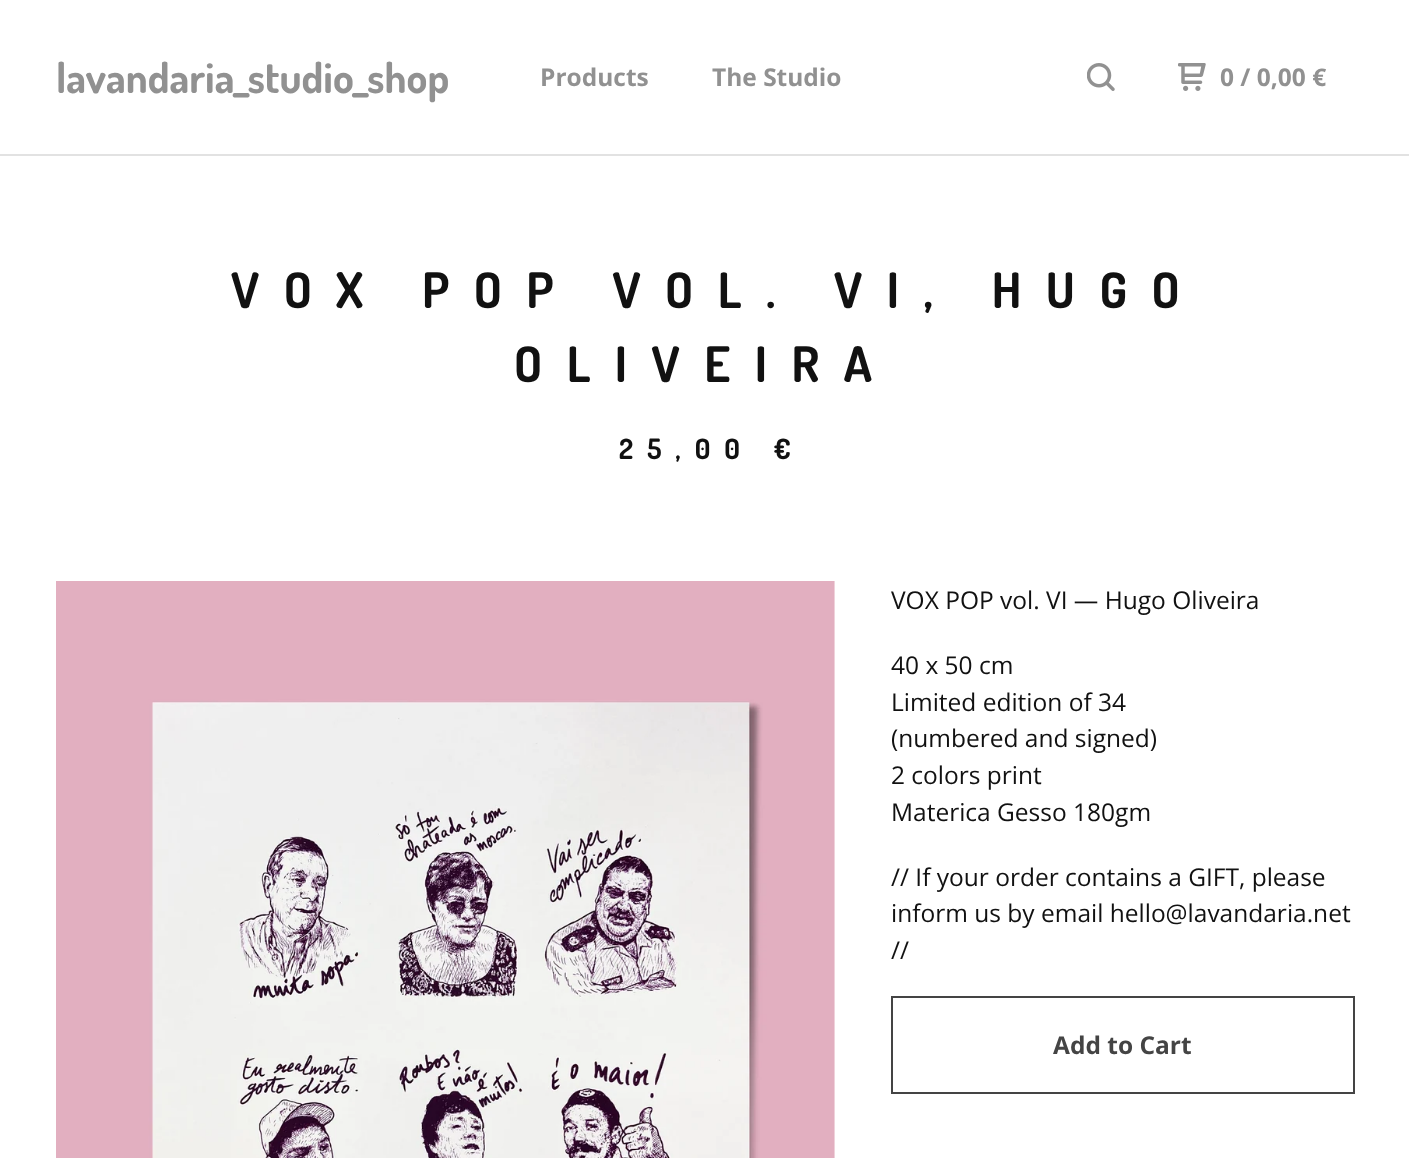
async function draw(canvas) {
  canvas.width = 1409;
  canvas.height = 1158;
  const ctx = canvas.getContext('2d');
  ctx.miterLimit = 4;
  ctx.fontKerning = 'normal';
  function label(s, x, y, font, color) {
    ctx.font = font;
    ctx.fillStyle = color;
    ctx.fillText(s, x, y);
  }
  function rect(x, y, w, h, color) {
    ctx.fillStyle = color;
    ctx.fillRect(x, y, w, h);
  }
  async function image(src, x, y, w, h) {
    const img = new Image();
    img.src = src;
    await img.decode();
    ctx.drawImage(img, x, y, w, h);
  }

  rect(0, 0, 1409, 1158, '#fff');
  label('lavandaria_studio_shop', 56, 93, 'bold 42px Dosis', '#919191');
  label('Products', 540, 86, 'bold 24.5px Open Sans', '#919191');
  label('The Studio', 712, 86, 'bold 24.5px Open Sans', '#919191');
  await image('assets/img1.png', 1087, 63, 28, 28);
  await image('assets/img2.png', 1178, 63, 28, 28);
  label('0 / 0,00 €', 1220, 86, 'bold 24.5px Open Sans', '#919191');
  rect(0, 154, 1409, 2, '#e2e2e2');
  ctx.letterSpacing = '24.5px';
  label('VOX POP VOL. VI, HUGO', 231, 308, 'bold 49px Dosis', '#111');
  label('OLIVEIRA', 514, 382, 'bold 49px Dosis', '#111');
  ctx.letterSpacing = '14px';
  label('25,00 €', 619, 459, 'bold 28px Dosis', '#111');
  await image('assets/img3.png', 56, 581, 779, 577);
  ctx.letterSpacing = '0px';
  label('VOX POP vol. VI — Hugo Oliveira', 891, 609, '24.5px Open Sans', '#111');
  label('40 x 50 cm', 891, 674, '24.5px Open Sans', '#111');
  label('Limited edition of 34', 891, 711, '24.5px Open Sans', '#111');
  label('(numbered and signed)', 891, 747, '24.5px Open Sans', '#111');
  label('2 colors print', 891, 784, '24.5px Open Sans', '#111');
  label('Materica Gesso 180gm', 891, 821, '24.5px Open Sans', '#111');
  label('// If your order contains a GIFT, please', 891, 886, '24.5px Open Sans', '#111');
  label('inform us by email hello@lavandaria.net', 891, 922, '24.5px Open Sans', '#111');
  label('//', 891, 959, '24.5px Open Sans', '#111');
  ctx.strokeStyle = '#444';
  ctx.lineWidth = 2;
  ctx.strokeRect(892, 997, 462, 96);
  label('Add to Cart', 1053, 1054, 'bold 24.5px Open Sans', '#444');
}

draw(document.querySelector('canvas'));
